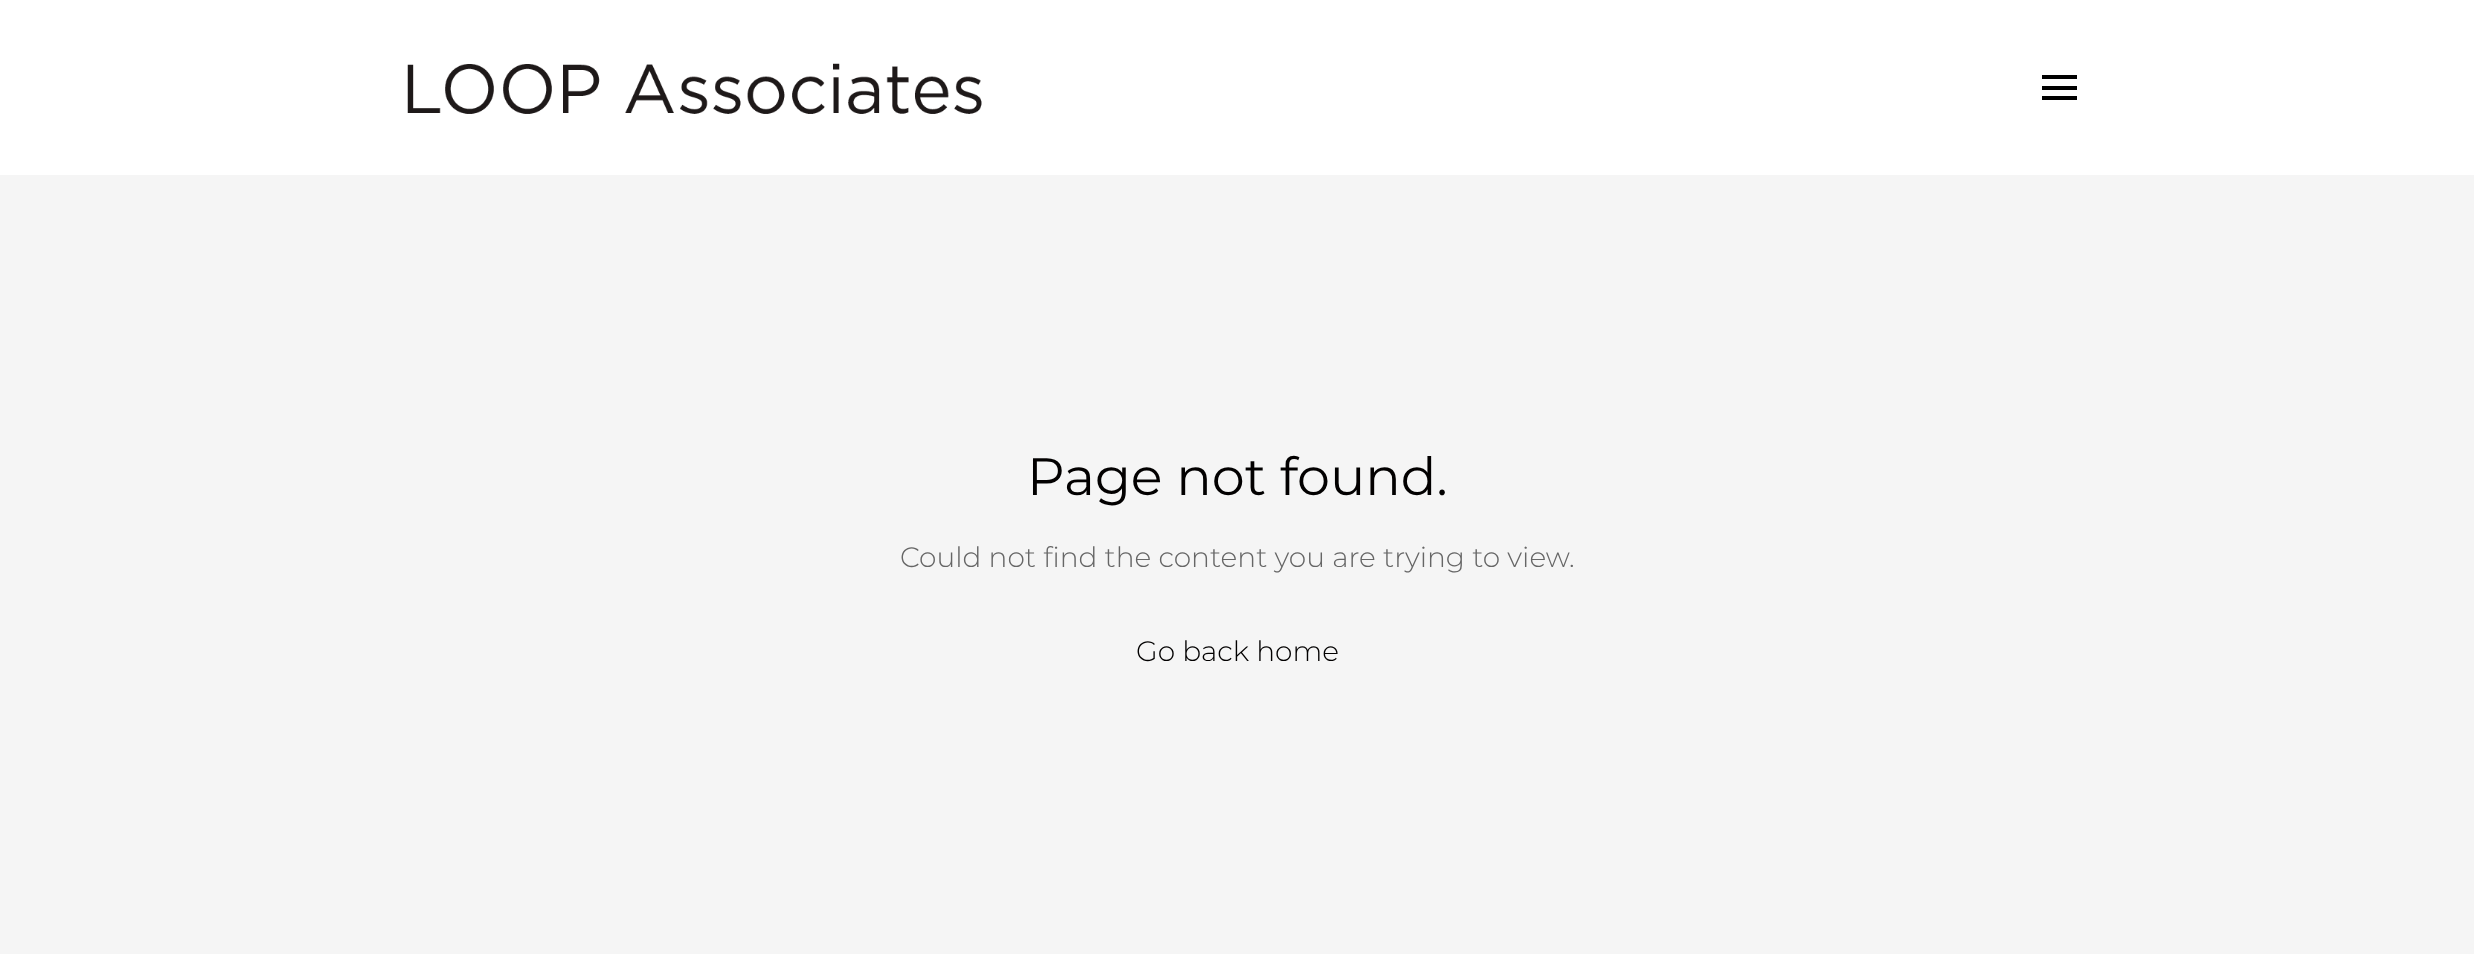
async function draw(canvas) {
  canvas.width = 2474;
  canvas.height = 954;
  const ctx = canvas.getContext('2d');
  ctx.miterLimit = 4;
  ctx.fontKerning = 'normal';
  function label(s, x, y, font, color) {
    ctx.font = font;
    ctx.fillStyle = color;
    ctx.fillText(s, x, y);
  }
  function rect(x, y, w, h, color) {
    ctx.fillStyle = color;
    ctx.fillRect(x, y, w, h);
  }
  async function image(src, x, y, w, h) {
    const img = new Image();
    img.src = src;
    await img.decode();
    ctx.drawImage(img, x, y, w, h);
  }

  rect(0, 0, 2474, 954, '#fff');
  await image('assets/img1.png', 407, 63, 575, 51);
  rect(2042, 75, 35, 4, '#000');
  rect(2042, 86, 35, 4, '#000');
  rect(2042, 96, 35, 4, '#000');
  rect(0, 175, 2474, 779, '#f5f5f5');
  label('Page not found.', 1027, 495, '52.5px Montserrat', '#020000');
  label('Could not find the content you are trying to view.', 900, 567, '300 28px Montserrat', '#666');
  label('Go back home', 1136, 661, '300 28px Montserrat', '#020000');
}

draw(document.querySelector('canvas'));
